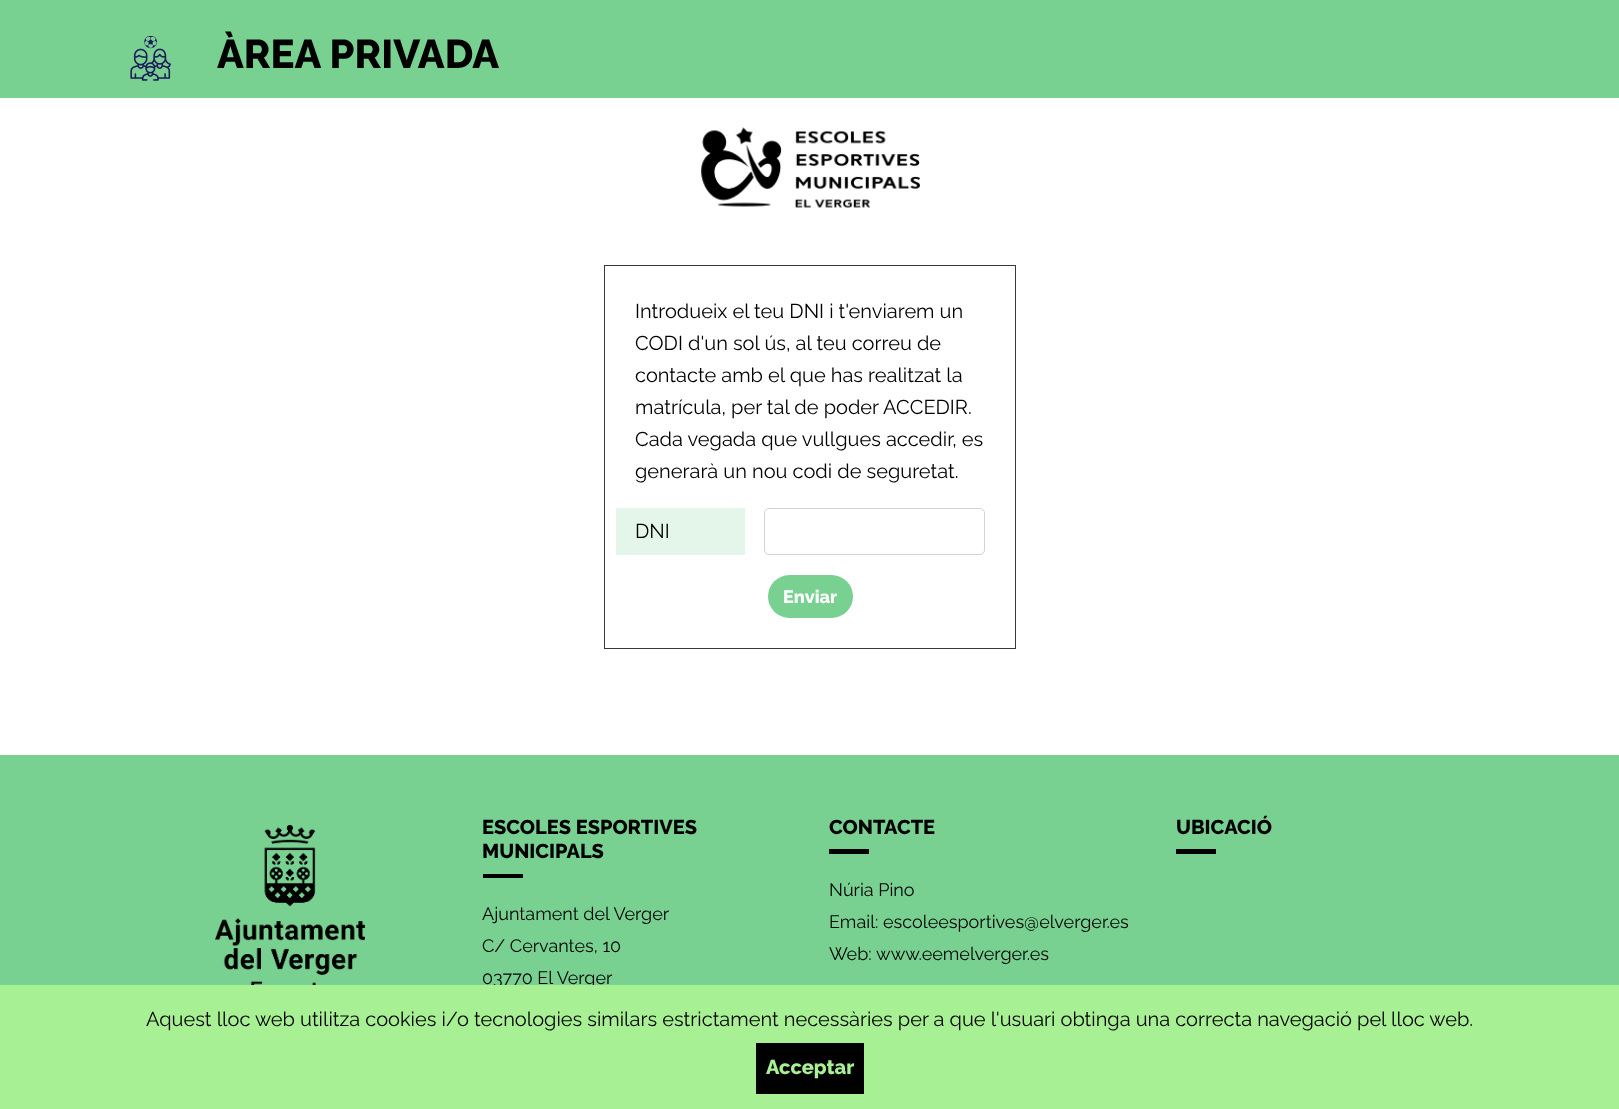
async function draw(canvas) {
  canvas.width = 1619;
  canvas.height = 1109;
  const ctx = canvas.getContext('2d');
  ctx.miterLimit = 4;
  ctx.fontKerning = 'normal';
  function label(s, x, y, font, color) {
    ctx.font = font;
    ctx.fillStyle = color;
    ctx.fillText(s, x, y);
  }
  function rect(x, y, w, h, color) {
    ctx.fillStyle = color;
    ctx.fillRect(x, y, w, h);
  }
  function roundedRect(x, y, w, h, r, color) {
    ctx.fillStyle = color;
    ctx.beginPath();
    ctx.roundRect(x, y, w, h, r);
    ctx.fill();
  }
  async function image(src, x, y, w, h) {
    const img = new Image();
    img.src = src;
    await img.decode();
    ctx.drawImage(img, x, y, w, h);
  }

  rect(0, 0, 1619, 1109, '#fff');
  rect(0, 0, 1619, 98, '#78d191');
  await image('assets/img1.png', 130, 36, 41, 45);
  label('ÀREA PRIVADA', 217, 68, '800 40px Raleway', '#000');
  await image('assets/img2.png', 701, 127, 219, 81);
  ctx.strokeStyle = '#343a40';
  ctx.strokeRect(604.5, 265.5, 411, 383);
  label('Introdueix el teu DNI i t\'enviarem un', 635, 318, '20px Raleway', '#000');
  label('CODI d\'un sol ús, al teu correu de', 635, 350, '20px Raleway', '#000');
  label('contacte amb el que has realitzat la', 635, 382, '20px Raleway', '#000');
  label('matrícula, per tal de poder ACCEDIR.', 635, 414, '20px Raleway', '#000');
  label('Cada vegada que vullgues accedir, es', 635, 446, '20px Raleway', '#000');
  label('generarà un nou codi de seguretat.', 635, 478, '20px Raleway', '#000');
  rect(616, 508, 129, 47, '#e4f6e9');
  label('DNI', 635, 538, '20px Raleway', '#000');
  ctx.beginPath();
  ctx.roundRect(764.5, 508.5, 220, 46, 4.5);
  ctx.strokeStyle = '#ced4da';
  ctx.stroke();
  roundedRect(768, 575, 85, 43, 21.5, '#78d191');
  label('Enviar', 783, 603, '800 18px Raleway', '#fff');
  rect(0, 755, 1619, 230, '#78d191');
  await image('assets/img3.png', 215, 825, 150, 160);
  label('ESCOLES ESPORTIVES', 482, 834, '800 20px Raleway', '#000');
  label('MUNICIPALS', 482, 858, '800 20px Raleway', '#000');
  rect(483, 874, 40, 4, '#000');
  label('Ajuntament del Verger', 482, 920, '18px Raleway', '#000');
  label('C/ Cervantes, 10', 482, 952, '18px Raleway', '#000');
  label('03770 El Verger', 482, 984, '18px Raleway', '#000');
  label('CONTACTE', 829, 834, '800 20px Raleway', '#000');
  rect(829, 849, 40, 5, '#000');
  label('Núria Pino', 829, 896, '18px Raleway', '#000');
  label('Email: escoleesportives@elverger.es', 829, 928, '18px Raleway', '#000');
  label('Web:', 829, 960, '18px Raleway', '#000');
  label('www.eemelverger.es', 876, 960, '18px Raleway', '#000');
  label('UBICACIÓ', 1176, 834, '800 20px Raleway', '#000');
  rect(1176, 849, 40, 5, '#000');
  rect(0, 985, 1619, 124, '#a8f094');
  label('Aquest lloc web utilitza cookies i/o tecnologies similars estrictament necessàries per a que l\'usuari obtinga una correcta navegació pel lloc web.', 146, 1026, '20px Raleway', '#000');
  rect(756, 1043, 108, 51, '#000');
  label('Acceptar', 766, 1074, '800 20px Raleway', '#a8f094');
}

draw(document.querySelector('canvas'));
